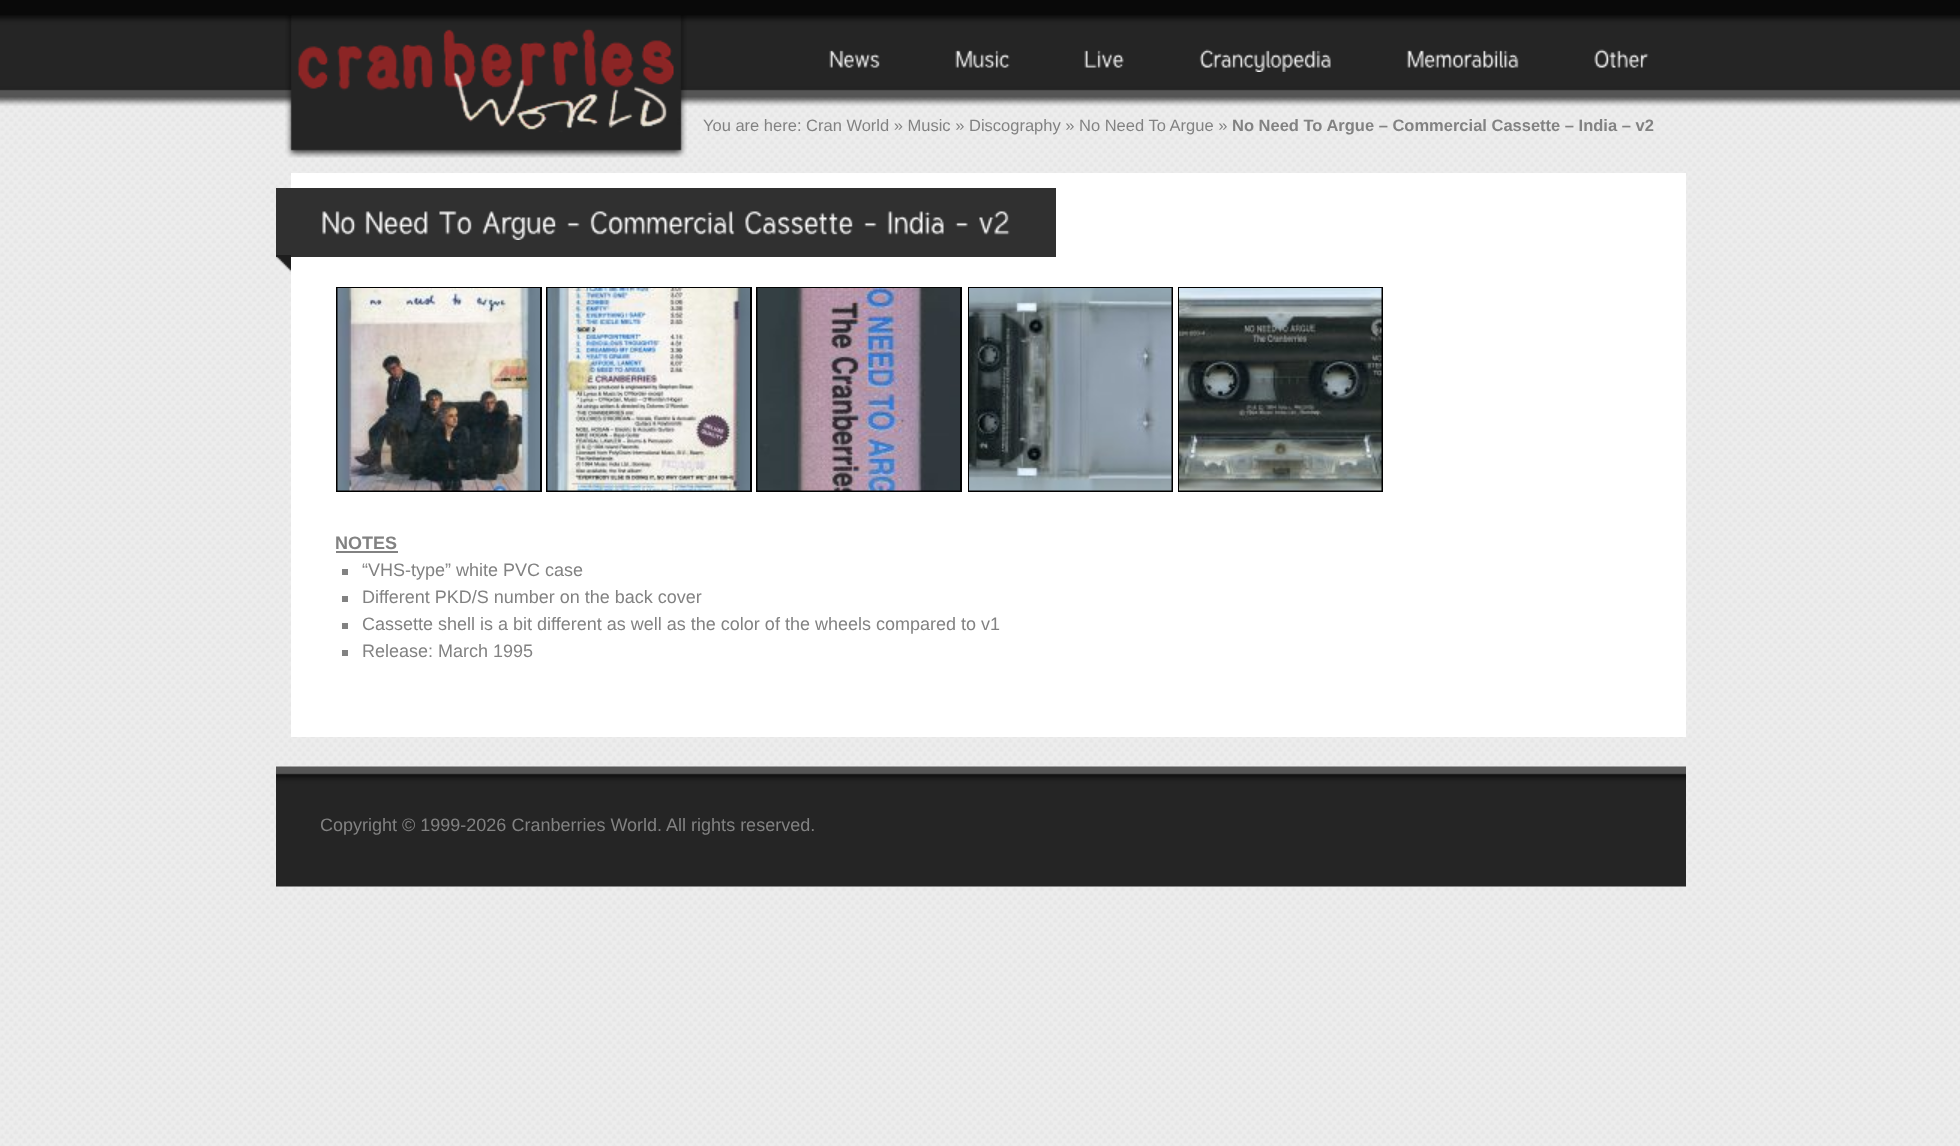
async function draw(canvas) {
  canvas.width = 1960;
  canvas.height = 1146;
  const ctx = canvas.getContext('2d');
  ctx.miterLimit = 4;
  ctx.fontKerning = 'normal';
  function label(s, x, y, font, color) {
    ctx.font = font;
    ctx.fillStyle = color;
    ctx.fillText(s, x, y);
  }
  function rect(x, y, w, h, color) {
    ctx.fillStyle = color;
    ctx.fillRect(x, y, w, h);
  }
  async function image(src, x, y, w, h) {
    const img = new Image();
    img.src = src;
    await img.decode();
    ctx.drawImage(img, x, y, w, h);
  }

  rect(0, 0, 1960, 1146, '#fff');
  await image('assets/img1.png', 0, 97, 1960, 1049);
  await image('assets/img2.png', 0, 0, 1960, 106);
  await image('assets/img3.png', 285, 15, 402, 143);
  await image('assets/img4.png', 829, 50, 51, 18);
  await image('assets/img5.png', 955, 50, 55, 18);
  await image('assets/img6.png', 1084, 50, 40, 18);
  await image('assets/img7.png', 1199, 49, 132, 23);
  await image('assets/img8.png', 1406, 50, 113, 18);
  await image('assets/img9.png', 1594, 49, 55, 19);
  label('You are here: Cran World » Music » Discography » No Need To Argue »', 703, 131, '16.5px Liberation Sans', '#828282');
  label('No Need To Argue – Commercial Cassette – India – v2', 1232, 131, 'bold 16.5px Liberation Sans', '#828282');
  rect(291, 173, 1395, 564, '#fff');
  rect(276, 188, 780, 69, '#303030');
  await image('assets/img10.png', 322, 211, 34, 24);
  await image('assets/img11.png', 365, 211, 63, 24);
  await image('assets/img12.png', 439, 211, 33, 24);
  await image('assets/img13.png', 482, 211, 75, 29);
  await image('assets/img14.png', 567, 222, 13, 5);
  await image('assets/img15.png', 590, 211, 145, 24);
  await image('assets/img16.png', 745, 211, 108, 24);
  await image('assets/img14.png', 864, 222, 13, 5);
  await image('assets/img17.png', 887, 211, 57, 24);
  await image('assets/img18.png', 955, 222, 13, 5);
  await image('assets/img19.png', 979, 211, 31, 24);
  await image('assets/img20.png', 276, 255, 15, 17);
  ctx.strokeStyle = '#000';
  ctx.lineWidth = 2;
  ctx.strokeRect(337, 288, 204, 203);
  ctx.strokeRect(547, 288, 204, 203);
  ctx.strokeRect(757, 288, 204, 203);
  ctx.strokeRect(969, 288, 203, 203);
  ctx.strokeRect(1179, 288, 203, 203);
  await image('assets/img21.png', 337, 288, 203, 203);
  await image('assets/img22.png', 547, 288, 203, 203);
  await image('assets/img23.png', 757, 288, 203, 203);
  await image('assets/img24.png', 969, 288, 203, 203);
  await image('assets/img25.png', 1179, 288, 203, 203);
  label('NOTES', 335, 549, 'bold 18px Liberation Sans', '#828282');
  rect(336, 551, 62, 2, '#828282');
  rect(342, 569, 6, 6, '#828282');
  label('“VHS-type” white PVC case', 362, 576, '18px Liberation Sans', '#828282');
  rect(342, 596, 6, 6, '#828282');
  label('Different PKD/S number on the back cover', 362, 603, '18px Liberation Sans', '#828282');
  rect(342, 623, 6, 6, '#828282');
  label('Cassette shell is a bit different as well as the color of the wheels compared to v1', 362, 630, '18px Liberation Sans', '#828282');
  rect(342, 650, 6, 6, '#828282');
  label('Release: March 1995', 362, 657, '18px Liberation Sans', '#828282');
  await image('assets/img26.png', 276, 766, 1410, 121);
  label('Copyright © 1999-2026 Cranberries World. All rights reserved.', 320, 831, '18px Liberation Sans', '#828282');
}

draw(document.querySelector('canvas'));
